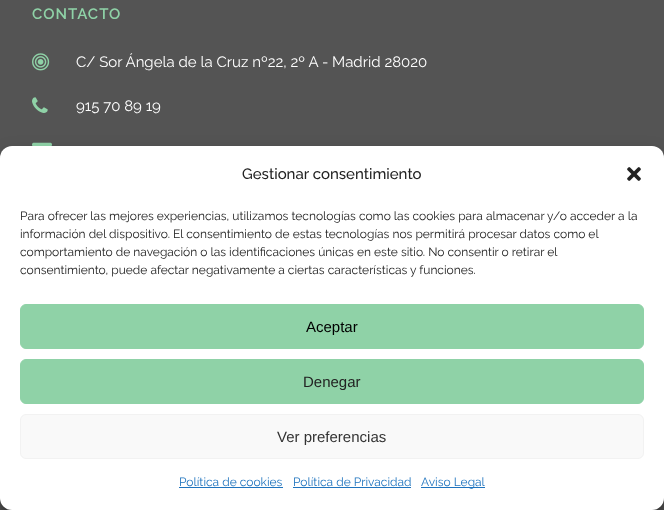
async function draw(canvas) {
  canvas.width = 664;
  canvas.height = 510;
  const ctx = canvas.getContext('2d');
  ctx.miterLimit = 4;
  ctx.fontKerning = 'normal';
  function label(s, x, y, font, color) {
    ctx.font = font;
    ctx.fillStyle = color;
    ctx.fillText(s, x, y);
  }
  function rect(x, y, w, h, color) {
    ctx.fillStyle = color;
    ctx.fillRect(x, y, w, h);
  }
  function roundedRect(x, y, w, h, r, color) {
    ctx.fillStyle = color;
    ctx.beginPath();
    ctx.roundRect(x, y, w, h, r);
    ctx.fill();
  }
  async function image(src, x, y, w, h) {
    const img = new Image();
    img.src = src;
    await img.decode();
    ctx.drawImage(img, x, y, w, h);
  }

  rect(0, 0, 664, 510, '#545454');
  ctx.letterSpacing = '1px';
  label('CONTACTO', 32, 19, '600 15px Raleway', '#8fd2a7');
  await image('assets/img1.png', 32, 53, 18, 18);
  ctx.letterSpacing = '0px';
  label('C/ Sor Ángela de la Cruz nº22, 2º A - Madrid 28020', 76, 67, '15px Raleway', '#fff');
  await image('assets/img2.png', 32, 97, 16, 16);
  label('915 70 89 19', 76, 111, '15px Raleway', '#fff');
  await image('assets/img3.png', 32, 142, 20, 4);
  ctx.fillStyle = '#0000003b';
  ctx.filter = 'blur(3px)';
  ctx.beginPath();
  ctx.roundRect(0, 152, 664, 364, 12);
  ctx.fill();
  ctx.filter = 'none';
  ctx.fillStyle = '#00000030';
  ctx.filter = 'blur(10px)';
  ctx.beginPath();
  ctx.roundRect(0, 156, 664, 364, 12);
  ctx.fill();
  ctx.filter = 'none';
  roundedRect(0, 146, 664, 364, 12, '#fff');
  label('Gestionar consentimiento', 242, 179, '500 15px Raleway', '#222');
  await image('assets/img4.png', 627, 167, 14, 14);
  label('Para ofrecer las mejores experiencias, utilizamos tecnologías como las cookies para almacenar y/o acceder a la', 20, 220, '12px Raleway', '#222');
  label('información del dispositivo. El consentimiento de estas tecnologías nos permitirá procesar datos como el', 20, 238, '12px Raleway', '#222');
  label('comportamiento de navegación o las identificaciones únicas en este sitio. No consentir o retirar el', 20, 256, '12px Raleway', '#222');
  label('consentimiento, puede afectar negativamente a ciertas características y funciones.', 20, 274, '12px Raleway', '#222');
  ctx.fillStyle = '#8fd2a7';
  ctx.beginPath();
  ctx.roundRect(20.5, 304.5, 623, 44, 5.5);
  ctx.fill();
  ctx.strokeStyle = '#8fd2a7';
  ctx.stroke();
  label('Aceptar', 306, 332, '15px Liberation Sans', '#000');
  ctx.fillStyle = '#8fd2a7';
  ctx.beginPath();
  ctx.roundRect(20.5, 359.5, 623, 44, 5.5);
  ctx.fill();
  ctx.stroke();
  label('Denegar', 303, 387, '15px Liberation Sans', '#222');
  ctx.fillStyle = '#f9f9f9';
  ctx.beginPath();
  ctx.roundRect(20.5, 414.5, 623, 44, 5.5);
  ctx.fill();
  ctx.strokeStyle = '#f2f2f2';
  ctx.stroke();
  label('Ver preferencias', 277, 442, '15px Liberation Sans', '#333');
  label('Política de cookies', 179, 486, '12px Raleway', '#1e73be');
  rect(179, 487, 104, 1, '#1e73be');
  label('Política de Privacidad', 293, 486, '12px Raleway', '#1e73be');
  rect(293, 487, 118, 1, '#1e73be');
  rect(421, 487, 64, 1, '#1e73be');
  label('Aviso Legal', 421, 486, '12px Raleway', '#1e73be');
}

draw(document.querySelector('canvas'));
